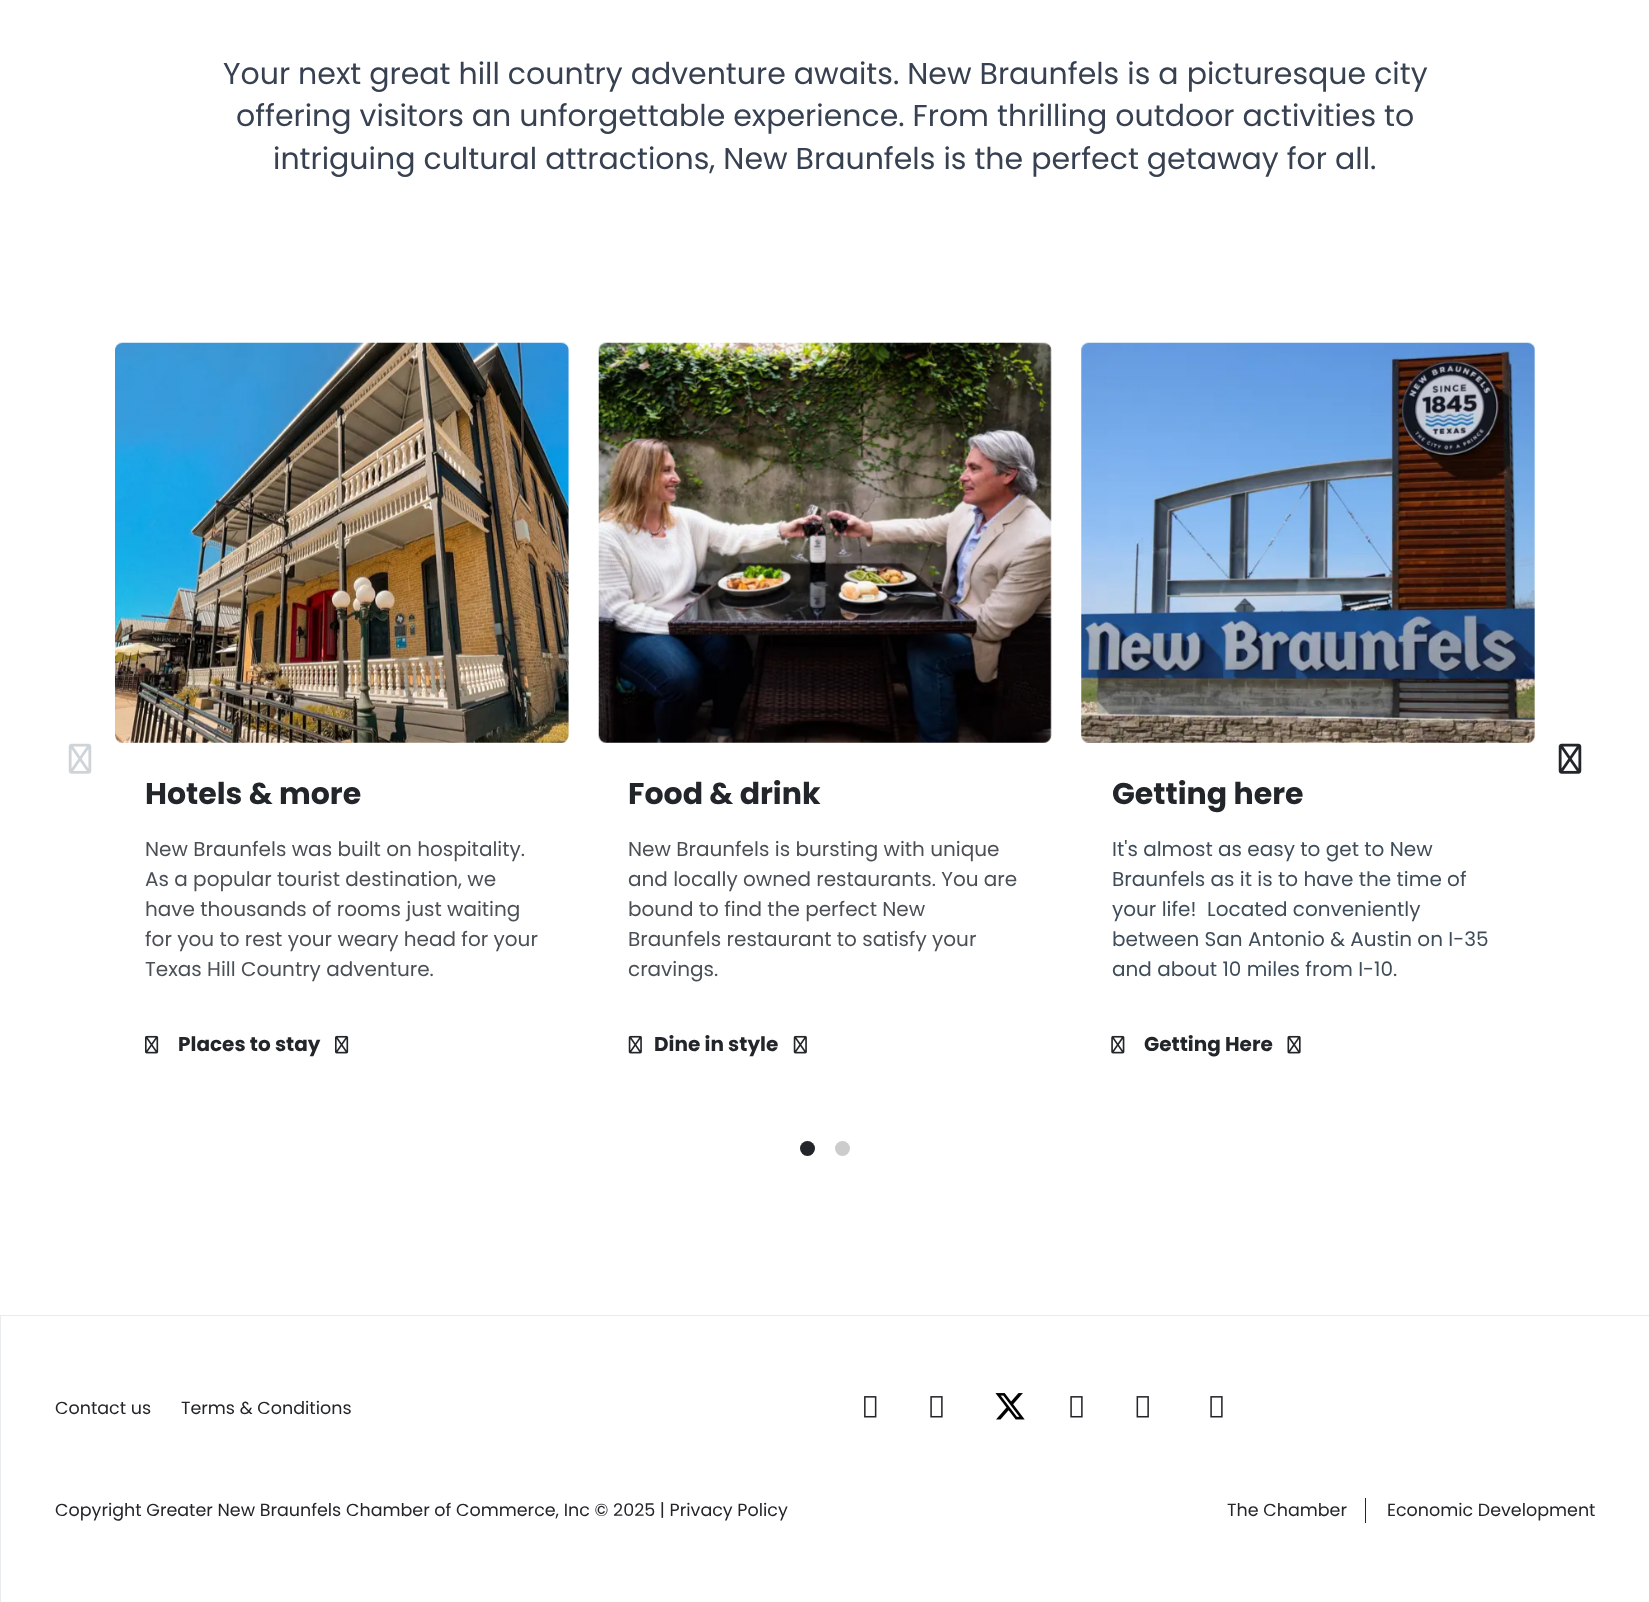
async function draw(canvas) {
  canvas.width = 1649;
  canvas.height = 1602;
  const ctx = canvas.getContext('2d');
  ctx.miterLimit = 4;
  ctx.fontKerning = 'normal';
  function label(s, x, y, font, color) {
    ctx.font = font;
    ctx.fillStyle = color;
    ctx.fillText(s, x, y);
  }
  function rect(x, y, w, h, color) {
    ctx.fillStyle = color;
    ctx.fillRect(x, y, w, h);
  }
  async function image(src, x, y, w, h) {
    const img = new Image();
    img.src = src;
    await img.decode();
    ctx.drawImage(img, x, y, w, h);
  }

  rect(0, 0, 1649, 1602, '#fff');
  label('Your next great hill country adventure awaits. New Braunfels is a picturesque city', 223, 84, '30px Poppins', '#374151');
  label('offering visitors an unforgettable experience. From thrilling outdoor activities to', 236, 126, '30px Poppins', '#374151');
  label('intriguing cultural attractions, New Braunfels is the perfect getaway for all.', 273, 169, '30px Poppins', '#374151');
  await image('assets/img1.png', 68, 743, 24, 31);
  await image('assets/img2.png', 1558, 743, 24, 31);
  await image('assets/img3.png', 115, 342, 454, 401);
  label('Hotels & more', 145, 804, 'bold 30px Poppins', '#222529');
  label('New Braunfels was built on hospitality.', 145, 856, '20px Poppins', '#4a5056');
  label('As a popular tourist destination, we', 145, 886, '20px Poppins', '#4a5056');
  label('have thousands of rooms just waiting', 145, 916, '20px Poppins', '#4a5056');
  label('for you to rest your weary head for your', 145, 946, '20px Poppins', '#4a5056');
  label('Texas Hill Country adventure.', 145, 976, '20px Poppins', '#4a5056');
  await image('assets/img4.png', 145, 1035, 14, 19);
  label('Places to stay', 178, 1051, 'bold 20px Poppins', '#222529');
  await image('assets/img4.png', 335, 1035, 14, 19);
  await image('assets/img5.png', 598, 342, 454, 401);
  label('Food & drink', 628, 804, 'bold 30px Poppins', '#222529');
  label('New Braunfels is bursting with unique', 628, 856, '20px Poppins', '#4a5056');
  label('and locally owned restaurants. You are', 628, 886, '20px Poppins', '#4a5056');
  label('bound to find the perfect New', 628, 916, '20px Poppins', '#4a5056');
  label('Braunfels restaurant to satisfy your', 628, 946, '20px Poppins', '#4a5056');
  label('cravings.', 628, 976, '20px Poppins', '#4a5056');
  await image('assets/img6.png', 628, 1035, 14, 19);
  label('Dine in style', 654, 1051, 'bold 20px Poppins', '#222529');
  await image('assets/img6.png', 793, 1035, 14, 19);
  await image('assets/img7.png', 1081, 342, 454, 401);
  label('Getting here', 1112, 804, 'bold 30px Poppins', '#222529');
  label('It\'s almost as easy to get to New', 1112, 856, '20px Poppins', '#3f4d5a');
  label('Braunfels as it is to have the time of', 1112, 886, '20px Poppins', '#3f4d5a');
  label('your life!  Located conveniently', 1112, 916, '20px Poppins', '#3f4d5a');
  label('between San Antonio & Austin on I-35', 1112, 946, '20px Poppins', '#3f4d5a');
  label('and about 10 miles from I-10.', 1112, 976, '20px Poppins', '#3f4d5a');
  await image('assets/img8.png', 1111, 1035, 14, 19);
  label('Getting Here', 1144, 1051, 'bold 20px Poppins', '#222529');
  await image('assets/img9.png', 1287, 1035, 14, 19);
  ctx.beginPath();
  ctx.arc(807.5, 1148.5, 7.5, 0, 2 * Math.PI);
  ctx.fill();
  ctx.fillStyle = '#ccc';
  ctx.beginPath();
  ctx.arc(842.5, 1148.5, 7.5, 0, 2 * Math.PI);
  ctx.fill();
  ctx.strokeStyle = '#e9ecef';
  ctx.strokeRect(0.5, 1315.5, 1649, 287);
  label('Contact us', 55, 1414, '17.5px Poppins', '#222529');
  label('Terms & Conditions', 181, 1414, '17.5px Poppins', '#222529');
  await image('assets/img10.png', 864, 1396, 13, 22);
  await image('assets/img11.png', 930, 1396, 13, 22);
  await image('assets/img12.png', 995, 1393, 30, 27);
  await image('assets/img11.png', 1070, 1396, 13, 22);
  await image('assets/img13.png', 1136, 1396, 13, 22);
  await image('assets/img11.png', 1210, 1396, 13, 22);
  label('Copyright Greater New Braunfels Chamber of Commerce, Inc © 2025 | Privacy Policy', 55, 1516, '17.5px Poppins', '#222529');
  label('The Chamber', 1227, 1516, '17.5px Poppins', '#222529');
  rect(1365, 1498, 1, 25, '#222529');
  label('Economic Development', 1387, 1516, '17.5px Poppins', '#222529');
}

draw(document.querySelector('canvas'));
